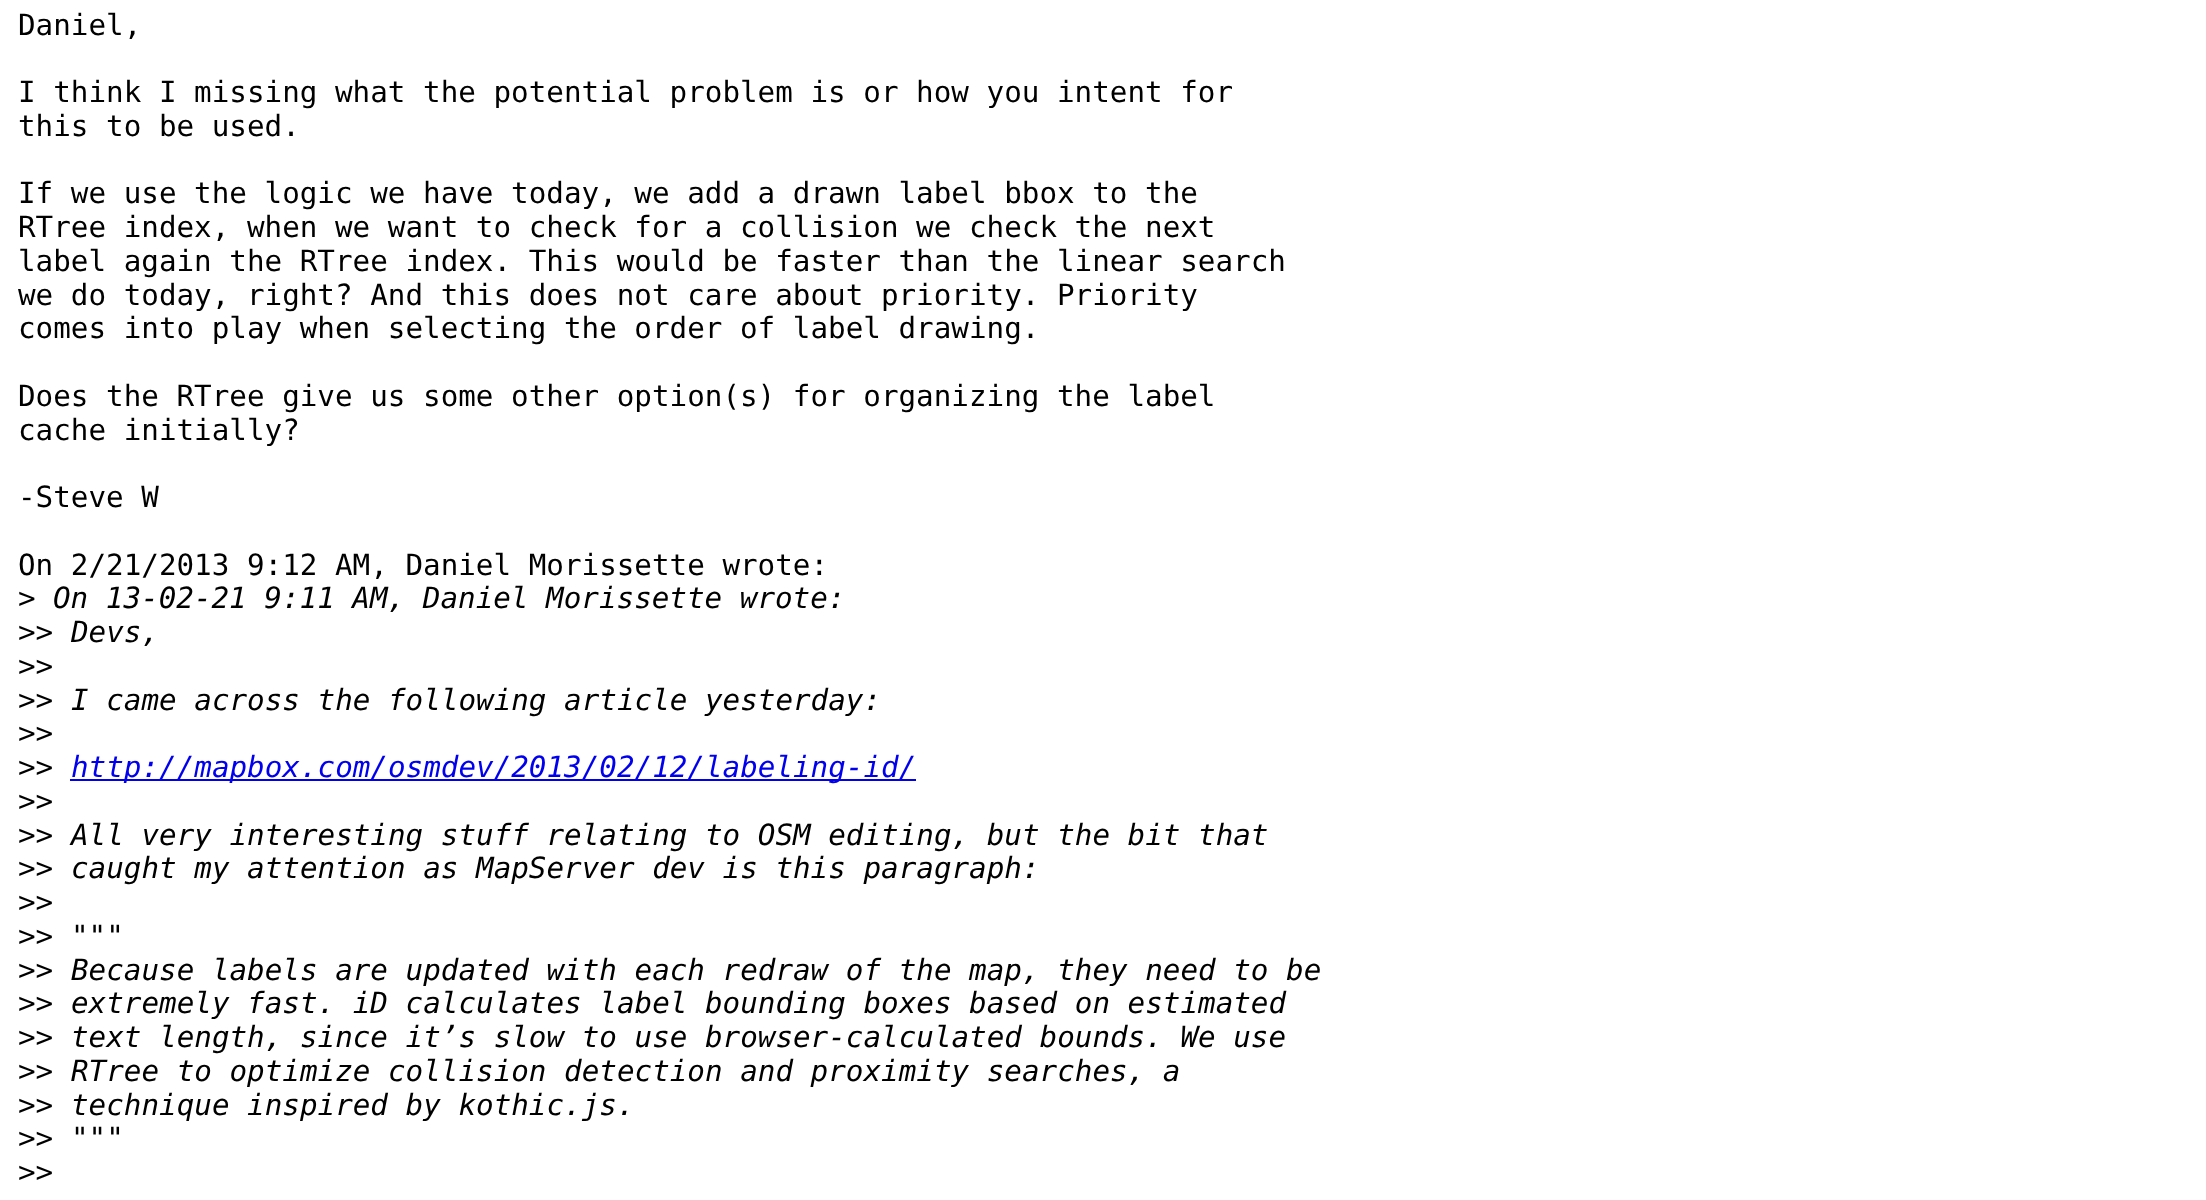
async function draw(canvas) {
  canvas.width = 2206;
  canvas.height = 1200;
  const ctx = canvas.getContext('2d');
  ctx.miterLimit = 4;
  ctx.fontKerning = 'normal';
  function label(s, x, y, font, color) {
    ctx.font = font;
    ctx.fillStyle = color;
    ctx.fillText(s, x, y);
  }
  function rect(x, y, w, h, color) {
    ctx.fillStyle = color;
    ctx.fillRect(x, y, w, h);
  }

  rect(0, 0, 2206, 1200, '#fff');
  label('Daniel,', 18, 35, '29.25px DejaVu Sans Mono', '#000');
  label('I think I missing what the potential problem is or how you intent for', 18, 102, '29.25px DejaVu Sans Mono', '#000');
  label('this to be used.', 18, 136, '29.25px DejaVu Sans Mono', '#000');
  label('If we use the logic we have today, we add a drawn label bbox to the', 18, 203, '29.25px DejaVu Sans Mono', '#000');
  label('RTree index, when we want to check for a collision we check the next', 18, 237, '29.25px DejaVu Sans Mono', '#000');
  label('label again the RTree index. This would be faster than the linear search', 18, 271, '29.25px DejaVu Sans Mono', '#000');
  label('we do today, right? And this does not care about priority. Priority', 18, 305, '29.25px DejaVu Sans Mono', '#000');
  label('comes into play when selecting the order of label drawing.', 18, 338, '29.25px DejaVu Sans Mono', '#000');
  label('Does the RTree give us some other option(s) for organizing the label', 18, 406, '29.25px DejaVu Sans Mono', '#000');
  label('cache initially?', 18, 440, '29.25px DejaVu Sans Mono', '#000');
  label('-Steve W', 18, 507, '29.25px DejaVu Sans Mono', '#000');
  label('On 2/21/2013 9:12 AM, Daniel Morissette wrote:', 18, 575, '29.25px DejaVu Sans Mono', '#000');
  label('>', 18, 608, '29.25px DejaVu Sans Mono', '#000');
  label('On 13-02-21 9:11 AM, Daniel Morissette wrote:', 53, 608, 'italic 29.25px DejaVu Sans Mono', '#000');
  label('>>', 18, 642, '29.25px DejaVu Sans Mono', '#000');
  label('Devs,', 71, 642, 'italic 29.25px DejaVu Sans Mono', '#000');
  label('>>', 18, 676, '29.25px DejaVu Sans Mono', '#000');
  label('>>', 18, 710, '29.25px DejaVu Sans Mono', '#000');
  label('I came across the following article yesterday:', 71, 710, 'italic 29.25px DejaVu Sans Mono', '#000');
  label('>>', 18, 743, '29.25px DejaVu Sans Mono', '#000');
  label('>>', 18, 777, '29.25px DejaVu Sans Mono', '#000');
  rect(70, 779, 846, 2, '#00e');
  label('http://mapbox.com/osmdev/2013/02/12/labeling-id/', 71, 777, 'italic 29.25px DejaVu Sans Mono', '#00e');
  label('>>', 18, 811, '29.25px DejaVu Sans Mono', '#000');
  label('>>', 18, 845, '29.25px DejaVu Sans Mono', '#000');
  label('All very interesting stuff relating to OSM editing, but the bit that', 71, 845, 'italic 29.25px DejaVu Sans Mono', '#000');
  label('>>', 18, 878, '29.25px DejaVu Sans Mono', '#000');
  label('caught my attention as MapServer dev is this paragraph:', 71, 878, 'italic 29.25px DejaVu Sans Mono', '#000');
  label('>>', 18, 912, '29.25px DejaVu Sans Mono', '#000');
  label('>>', 18, 946, '29.25px DejaVu Sans Mono', '#000');
  label('"""', 71, 946, 'italic 29.25px DejaVu Sans Mono', '#000');
  label('>>', 18, 980, '29.25px DejaVu Sans Mono', '#000');
  label('Because labels are updated with each redraw of the map, they need to be', 71, 980, 'italic 29.25px DejaVu Sans Mono', '#000');
  label('>>', 18, 1013, '29.25px DejaVu Sans Mono', '#000');
  label('extremely fast. iD calculates label bounding boxes based on estimated', 71, 1013, 'italic 29.25px DejaVu Sans Mono', '#000');
  label('>>', 18, 1047, '29.25px DejaVu Sans Mono', '#000');
  label('text length, since it’s slow to use browser-calculated bounds. We use', 71, 1047, 'italic 29.25px DejaVu Sans Mono', '#000');
  label('>>', 18, 1081, '29.25px DejaVu Sans Mono', '#000');
  label('RTree to optimize collision detection and proximity searches, a', 71, 1081, 'italic 29.25px DejaVu Sans Mono', '#000');
  label('>>', 18, 1115, '29.25px DejaVu Sans Mono', '#000');
  label('technique inspired by kothic.js.', 71, 1115, 'italic 29.25px DejaVu Sans Mono', '#000');
  label('>>', 18, 1148, '29.25px DejaVu Sans Mono', '#000');
  label('"""', 71, 1148, 'italic 29.25px DejaVu Sans Mono', '#000');
  label('>>', 18, 1182, '29.25px DejaVu Sans Mono', '#000');
}

draw(document.querySelector('canvas'));
